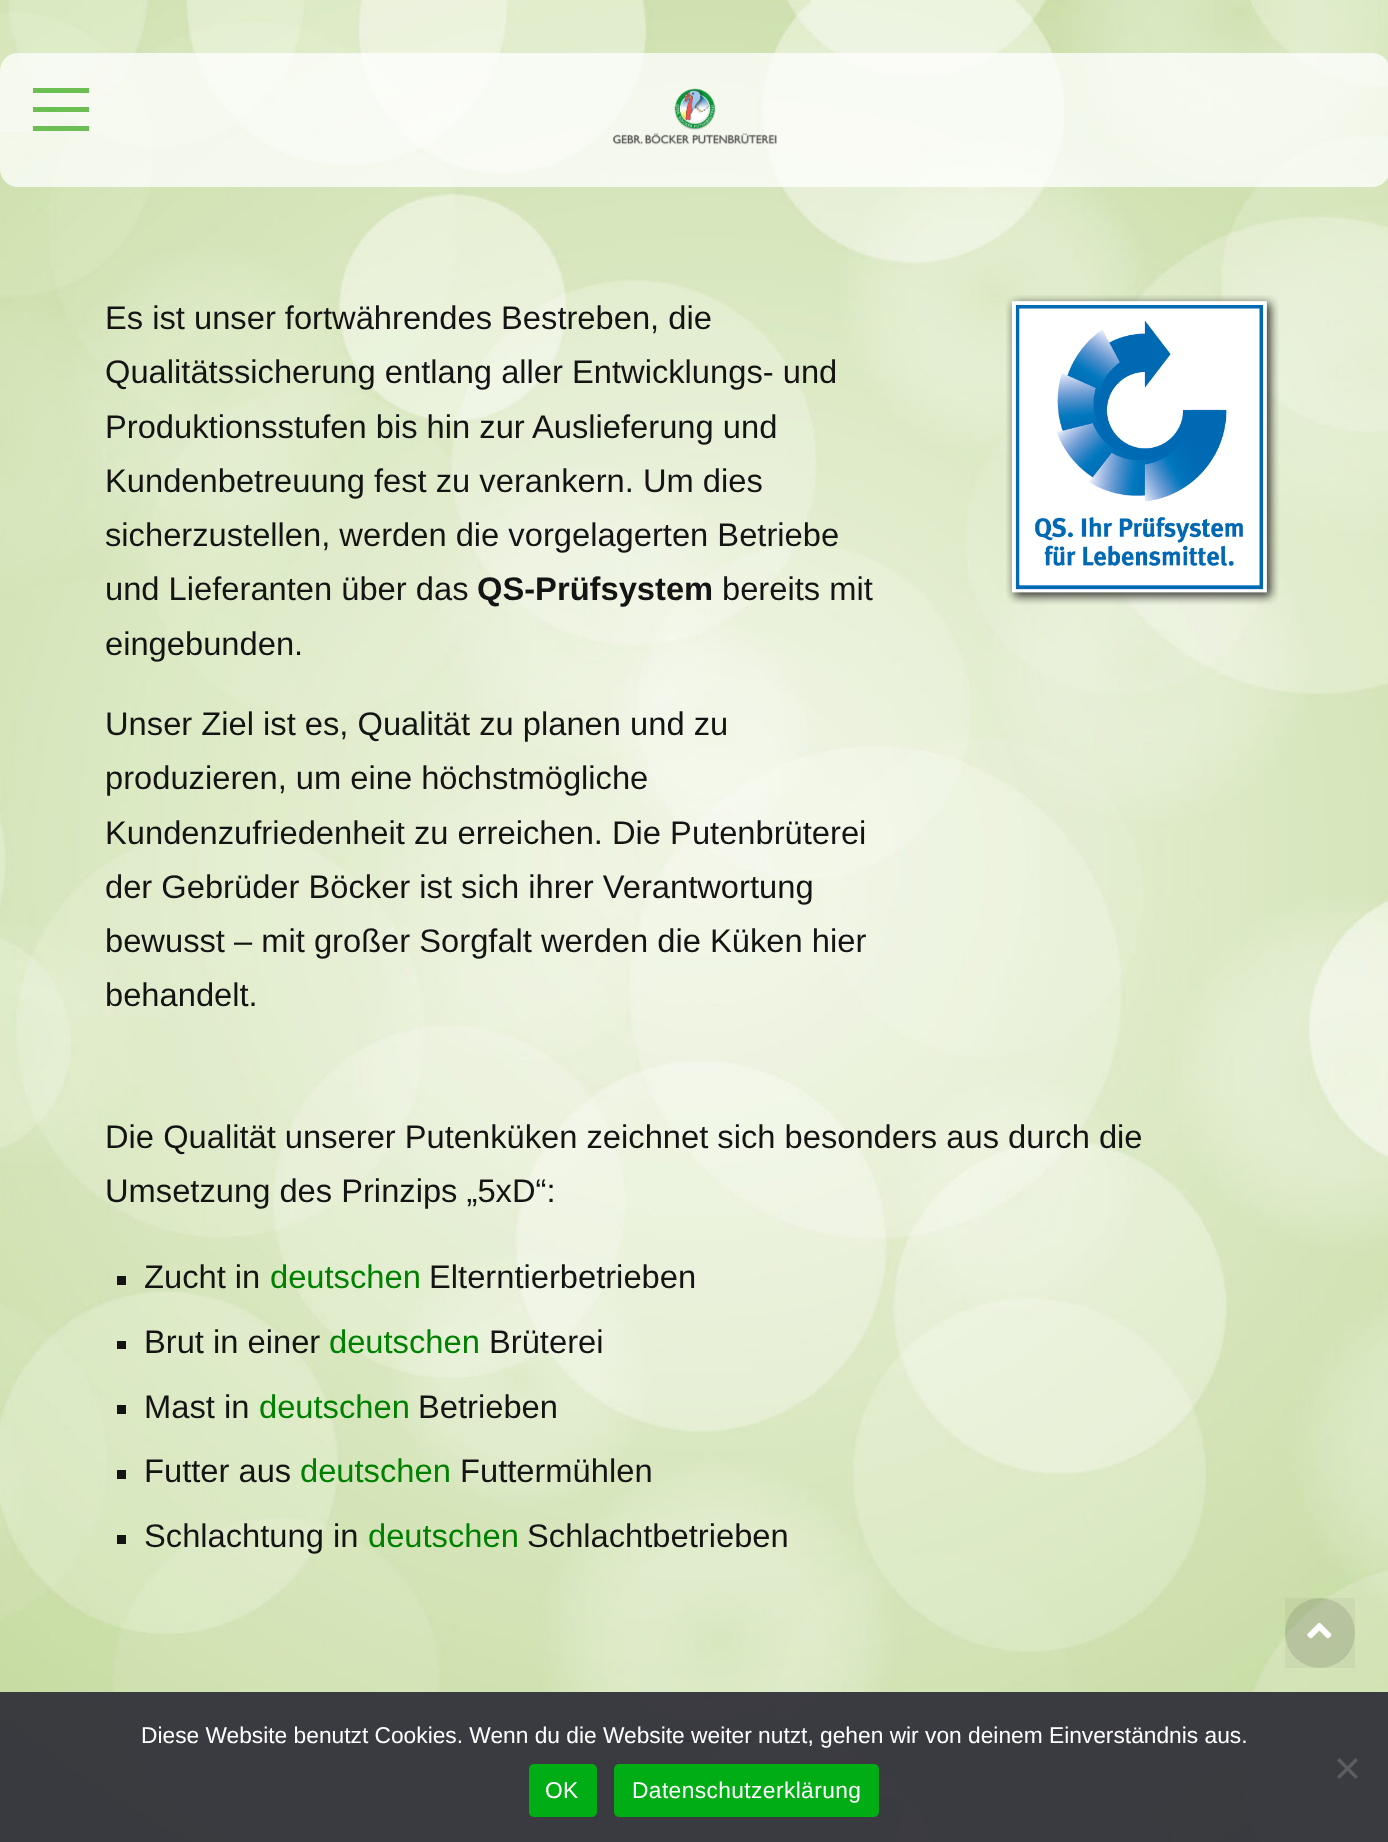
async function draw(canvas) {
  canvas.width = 1388;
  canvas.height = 1842;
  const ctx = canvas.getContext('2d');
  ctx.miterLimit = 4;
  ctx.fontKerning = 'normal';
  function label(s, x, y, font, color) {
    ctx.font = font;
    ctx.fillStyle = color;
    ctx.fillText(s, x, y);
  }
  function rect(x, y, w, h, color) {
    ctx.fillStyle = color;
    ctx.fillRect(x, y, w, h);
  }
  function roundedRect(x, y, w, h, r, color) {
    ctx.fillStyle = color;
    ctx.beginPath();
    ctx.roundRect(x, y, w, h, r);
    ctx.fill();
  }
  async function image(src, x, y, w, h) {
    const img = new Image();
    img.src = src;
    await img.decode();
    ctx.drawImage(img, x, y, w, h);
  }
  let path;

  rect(0, 0, 1388, 1842, '#fff');
  await image('assets/img1.png', 0, 0, 1388, 1842);
  roundedRect(0, 53, 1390, 134, 18, '#ffffffbf');
  rect(33, 88, 56, 5, '#6abe52');
  rect(33, 107, 56, 5, '#6abe52');
  rect(33, 126, 56, 5, '#6abe52');
  await image('assets/img2.png', 612, 88, 165, 57);
  label('Es ist unser fortwährendes Bestreben, die', 105, 329, '32.7px Liberation Sans', '#141414');
  label('Qualitätssicherung entlang aller Entwicklungs- und', 105, 383, '32.7px Liberation Sans', '#141414');
  label('Produktionsstufen bis hin zur Auslieferung und', 105, 438, '32.7px Liberation Sans', '#141414');
  label('Kundenbetreuung fest zu verankern. Um dies', 105, 492, '32.7px Liberation Sans', '#141414');
  label('sicherzustellen, werden die vorgelagerten Betriebe', 105, 546, '32.7px Liberation Sans', '#141414');
  label('und Lieferanten über das', 105, 600, '32.7px Liberation Sans', '#141414');
  label('QS-Prüfsystem', 477, 600, 'bold 32.7px Liberation Sans', '#141414');
  label('bereits mit', 722, 600, '32.7px Liberation Sans', '#141414');
  label('eingebunden.', 105, 655, '32.7px Liberation Sans', '#141414');
  label('Unser Ziel ist es, Qualität zu planen und zu', 105, 735, '32.7px Liberation Sans', '#141414');
  label('produzieren, um eine höchstmögliche', 105, 789, '32.7px Liberation Sans', '#141414');
  label('Kundenzufriedenheit zu erreichen. Die Putenbrüterei', 105, 844, '32.7px Liberation Sans', '#141414');
  label('der Gebrüder Böcker ist sich ihrer Verantwortung', 105, 898, '32.7px Liberation Sans', '#141414');
  label('bewusst – mit großer Sorgfalt werden die Küken hier', 105, 952, '32.7px Liberation Sans', '#141414');
  label('behandelt.', 105, 1006, '32.7px Liberation Sans', '#141414');
  await image('assets/img3.png', 1006, 295, 273, 310);
  label('Die Qualität unserer Putenküken zeichnet sich besonders aus durch die', 105, 1148, '32.7px Liberation Sans', '#141414');
  label('Umsetzung des Prinzips „5xD“:', 105, 1202, '32.7px Liberation Sans', '#141414');
  rect(117, 1276, 9, 9, '#141414');
  label('Zucht in', 144, 1288, '32.7px Liberation Sans', '#141414');
  label('deutschen', 270, 1288, '32.7px Liberation Sans', '#008000');
  label('Elterntierbetrieben', 429, 1288, '32.7px Liberation Sans', '#141414');
  rect(117, 1341, 9, 8, '#141414');
  label('Brut in einer', 144, 1353, '32.7px Liberation Sans', '#141414');
  label('deutschen', 329, 1353, '32.7px Liberation Sans', '#008000');
  label('Brüterei', 489, 1353, '32.7px Liberation Sans', '#141414');
  rect(117, 1405, 9, 9, '#141414');
  label('Mast in', 144, 1418, '32.7px Liberation Sans', '#141414');
  label('deutschen', 259, 1418, '32.7px Liberation Sans', '#008000');
  label('Betrieben', 418, 1418, '32.7px Liberation Sans', '#141414');
  rect(117, 1470, 9, 9, '#141414');
  label('Futter aus', 144, 1482, '32.7px Liberation Sans', '#141414');
  label('deutschen', 300, 1482, '32.7px Liberation Sans', '#008000');
  label('Futtermühlen', 460, 1482, '32.7px Liberation Sans', '#141414');
  rect(117, 1535, 9, 9, '#141414');
  label('Schlachtung in', 144, 1547, '32.7px Liberation Sans', '#141414');
  label('deutschen', 368, 1547, '32.7px Liberation Sans', '#008000');
  label('Schlachtbetrieben', 527, 1547, '32.7px Liberation Sans', '#141414');
  rect(639, 1740, 112, 2, '#535353');
  ctx.fillStyle = '#0000001a';
  ctx.beginPath();
  ctx.arc(1320, 1633, 35, 0, 2 * Math.PI);
  ctx.fill();
  rect(1285, 1598, 70, 70, '#0000000a');
  await image('assets/img4.png', 1307, 1622, 25, 17);
  rect(0, 1692, 1388, 150, '#32323af2');
  label('Diese Website benutzt Cookies. Wenn du die Website weiter nutzt, gehen wir von deinem Einverständnis aus.', 141, 1743, '22.75px Liberation Sans', '#fff');
  ctx.fillStyle = '#5d5d60';
  path = new Path2D('M1355.5 1758L1358 1760.5L1339.5 1779L1337 1776.5Z');
  ctx.fill(path);
  path = new Path2D('M1337 1760.5L1339.5 1758L1358 1776.5L1355.5 1779Z');
  ctx.fill(path);
  roundedRect(529, 1764, 68, 53, 5, '#00ad14');
  ctx.letterSpacing = '0.4px';
  label('OK', 545, 1798, '22.75px Liberation Sans', '#fff');
  roundedRect(614, 1764, 265, 53, 5, '#00ad14');
  label('Datenschutzerklärung', 632, 1798, '22.75px Liberation Sans', '#fff');
}

draw(document.querySelector('canvas'));
